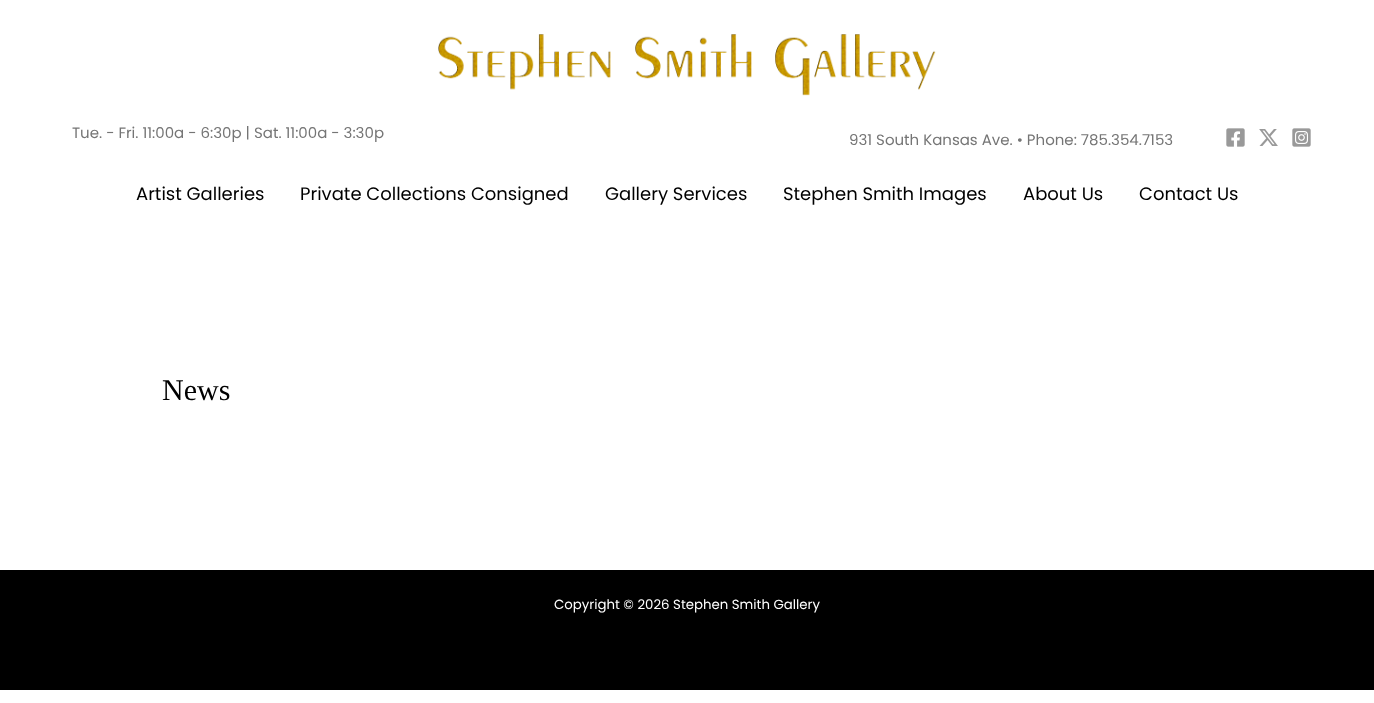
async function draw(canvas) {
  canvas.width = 1374;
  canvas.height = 703;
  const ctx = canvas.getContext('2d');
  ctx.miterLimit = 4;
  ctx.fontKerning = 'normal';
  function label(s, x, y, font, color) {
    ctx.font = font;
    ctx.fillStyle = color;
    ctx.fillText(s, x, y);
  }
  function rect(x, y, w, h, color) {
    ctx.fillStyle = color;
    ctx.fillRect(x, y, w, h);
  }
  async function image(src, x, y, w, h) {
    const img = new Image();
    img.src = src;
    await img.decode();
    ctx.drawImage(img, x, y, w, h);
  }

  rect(0, 0, 1374, 703, '#fff');
  await image('assets/img1.png', 438, 34, 498, 62);
  label('Tue. - Fri. 11:00a - 6:30p | Sat. 11:00a - 3:30p', 72, 138, '15px Poppins', '#757575');
  label('931 South Kansas Ave. • Phone: 785.354.7153', 849, 145, '15px Poppins', '#757575');
  await image('assets/img2.png', 1226, 128, 19, 19);
  await image('assets/img3.png', 1259, 129, 19, 17);
  await image('assets/img4.png', 1292, 128, 19, 19);
  label('Artist Galleries', 136, 200, '18px Poppins', '#000');
  label('Private Collections Consigned', 300, 200, '18px Poppins', '#000');
  label('Gallery Services', 605, 200, '18px Poppins', '#000');
  label('Stephen Smith Images', 783, 200, '18px Poppins', '#000');
  label('About Us', 1023, 200, '18px Poppins', '#000');
  label('Contact Us', 1139, 200, '18px Poppins', '#000');
  label('News', 162, 400, '30px Liberation Serif', '#000');
  rect(0, 570, 1374, 120, '#000');
  label('Copyright © 2026 Stephen Smith Gallery', 554, 609, '13.3px Poppins', '#fff');
}

draw(document.querySelector('canvas'));
